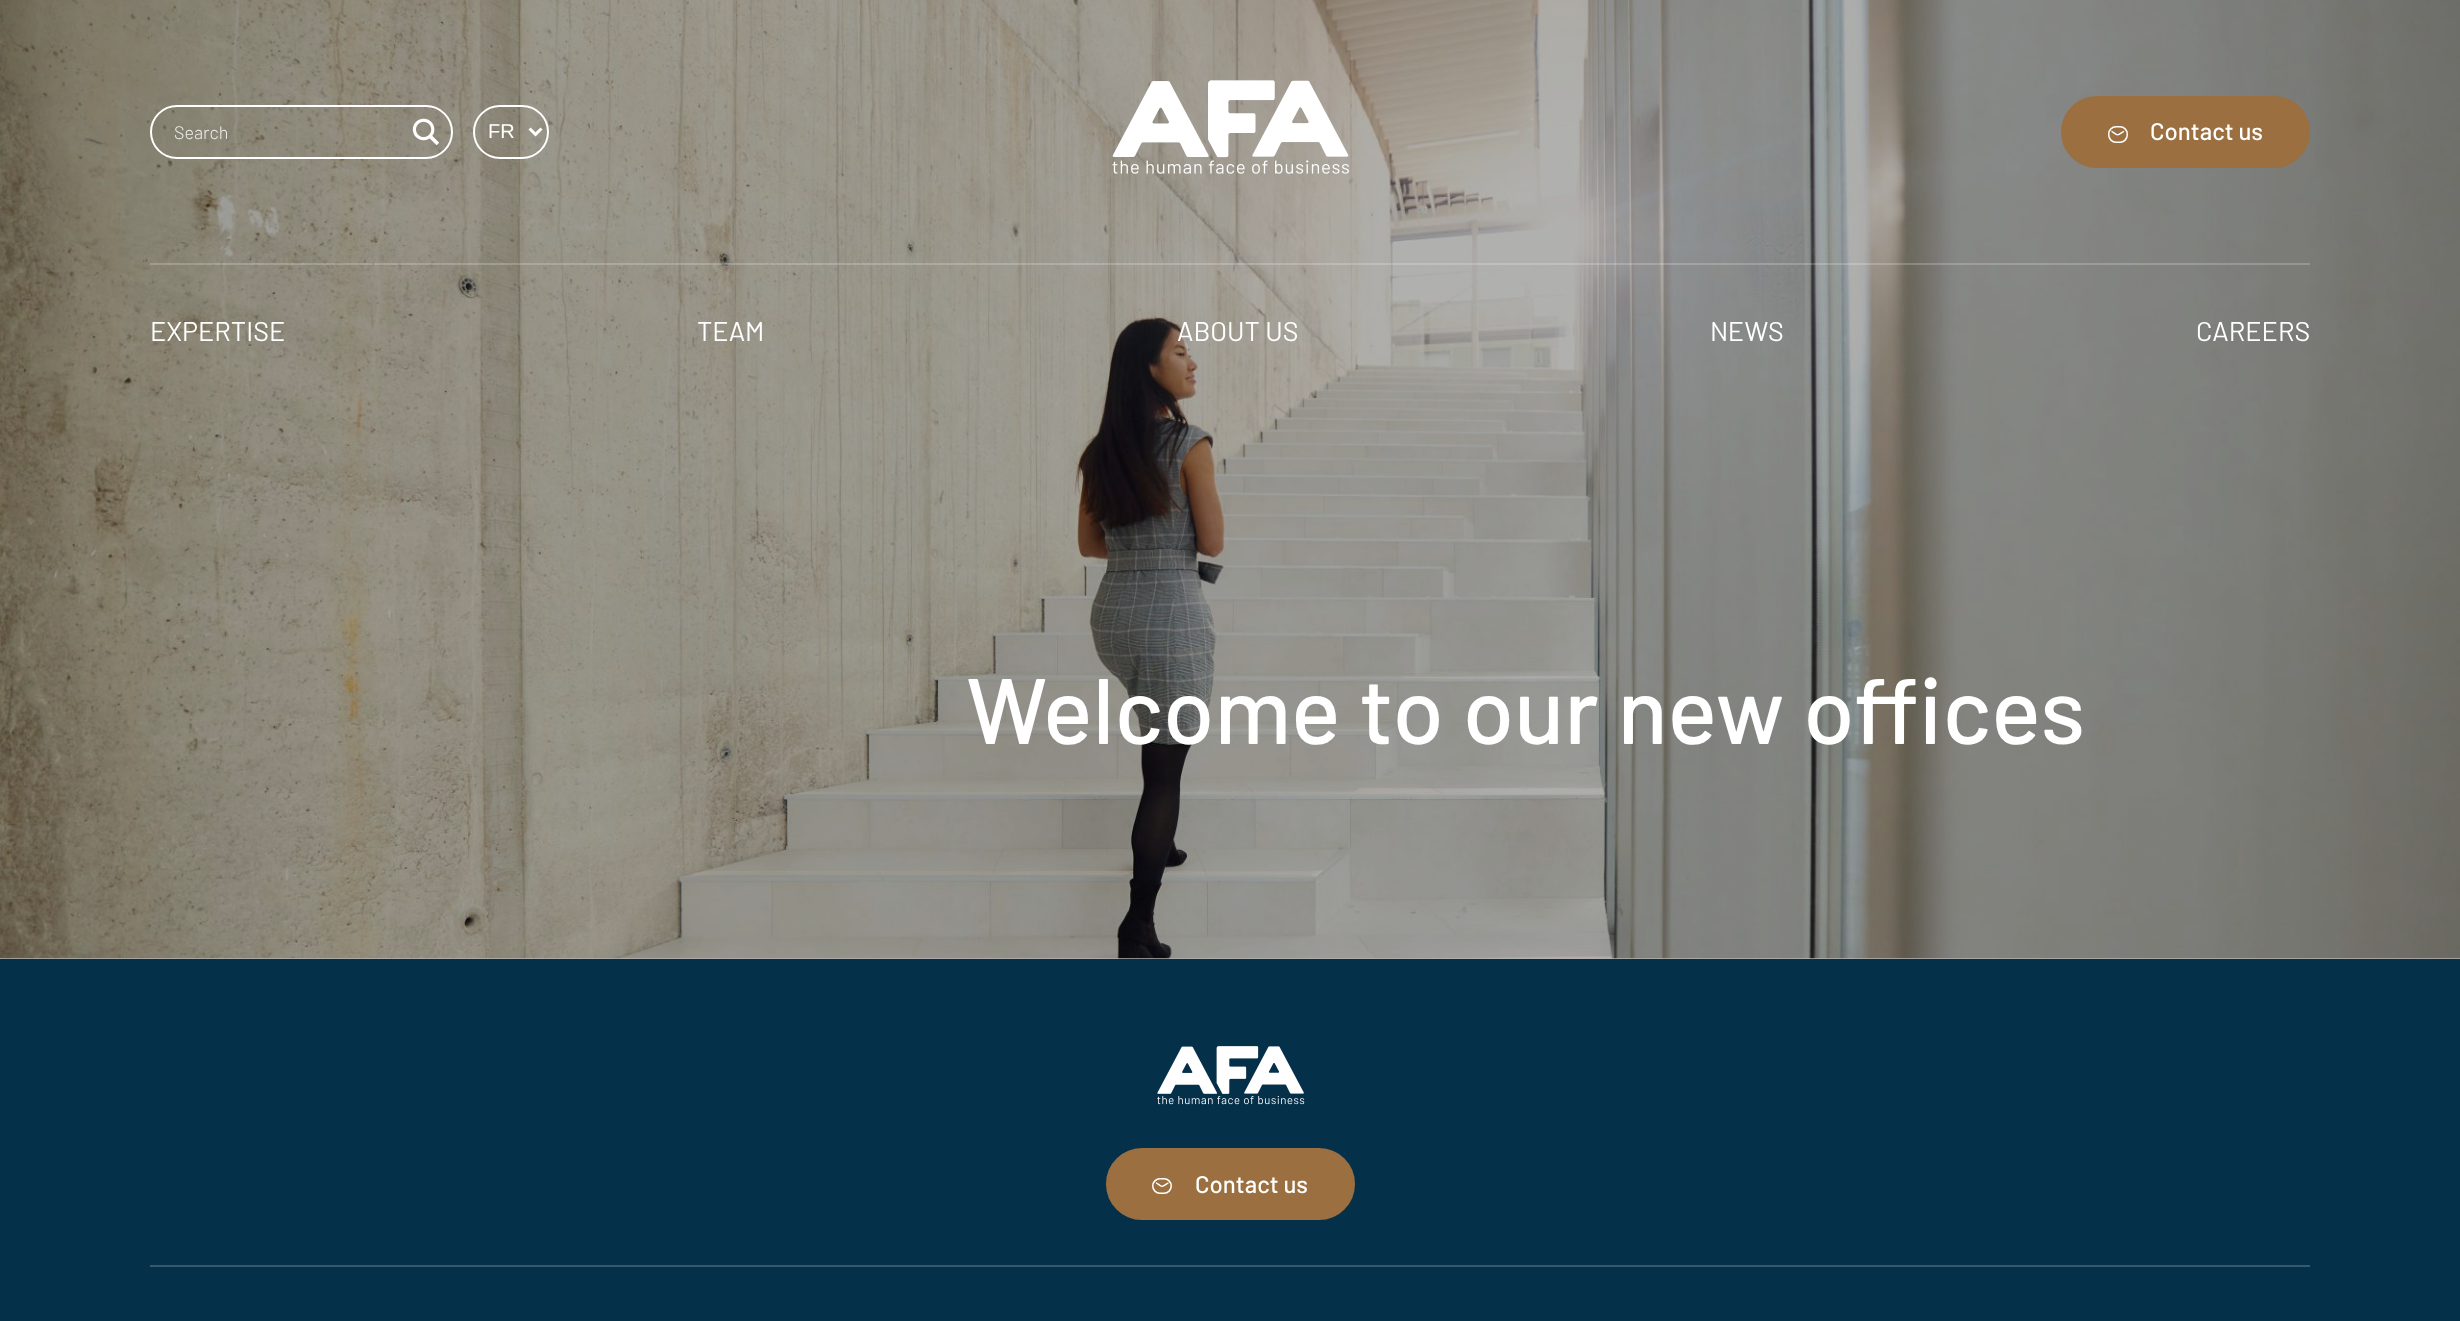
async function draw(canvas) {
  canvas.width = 2460;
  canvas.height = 1321;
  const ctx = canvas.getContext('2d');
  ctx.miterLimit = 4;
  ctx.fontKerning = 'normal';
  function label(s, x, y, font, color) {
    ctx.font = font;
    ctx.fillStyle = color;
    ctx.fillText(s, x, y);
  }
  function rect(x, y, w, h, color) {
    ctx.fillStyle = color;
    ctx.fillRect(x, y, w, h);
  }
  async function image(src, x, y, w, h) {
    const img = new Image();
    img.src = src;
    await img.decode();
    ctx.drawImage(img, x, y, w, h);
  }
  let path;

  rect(0, 0, 2460, 1321, '#b3b3b3');
  await image('assets/img3.png', 0, 0, 2460, 959);
  ctx.beginPath();
  ctx.roundRect(151, 106, 301, 52, 26);
  ctx.strokeStyle = '#fff';
  ctx.lineWidth = 2;
  ctx.stroke();
  label('Search', 174, 139, '300 18px Barlow', '#ededea');
  await image('assets/img1.png', 412, 118, 27, 28);
  ctx.beginPath();
  ctx.roundRect(474, 106, 74, 52, 26);
  ctx.stroke();
  path = new Path2D('M529.5 128.5L535.5 134.5L541.5 128.5');
  ctx.lineWidth = 3;
  ctx.stroke(path);
  label('FR', 488, 138, '20px Liberation Sans', '#fff');
  await image('assets/img2.png', 1112, 80, 237, 94);
  ctx.fillStyle = '#9b6f3f';
  ctx.beginPath();
  ctx.roundRect(2062, 97, 247, 70, 35);
  ctx.fill();
  ctx.strokeStyle = '#9b6f3f';
  ctx.lineWidth = 2;
  ctx.stroke();
  ctx.beginPath();
  ctx.roundRect(2108.75, 126.75, 18.5, 15.5, 7.25);
  ctx.strokeStyle = '#fff';
  ctx.lineWidth = 1.5;
  ctx.stroke();
  label('Contact us', 2150, 140, '500 24px Barlow', '#fff');
  path = new Path2D('M2112 131.5C2118 136 2117 136 2123.5 131.5');
  ctx.lineWidth = 1.4;
  ctx.lineCap = 'round';
  ctx.lineJoin = 'round';
  ctx.stroke(path);
  rect(150, 263, 2160, 2, '#ffffff33');
  label('EXPERTISE', 150, 341, '27px Barlow', '#fff');
  label('TEAM', 697, 341, '27px Barlow', '#fff');
  label('ABOUT US', 1177, 341, '27px Barlow', '#fff');
  label('NEWS', 1710, 341, '27px Barlow', '#fff');
  label('CAREERS', 2196, 341, '27px Barlow', '#fff');
  label('Welcome to our new offices', 966, 744, '500 93px Barlow', '#fff');
  rect(0, 959, 2460, 362, '#05304a');
  rect(150, 1265, 2160, 2, '#37596e');
  await image('assets/img4.png', 1157, 1046, 148, 59);
  ctx.fillStyle = '#9b6f3f';
  ctx.beginPath();
  ctx.roundRect(1107, 1149, 247, 70, 35);
  ctx.fill();
  ctx.strokeStyle = '#9b6f3f';
  ctx.lineWidth = 2;
  ctx.lineJoin = 'miter';
  ctx.stroke();
  ctx.beginPath();
  ctx.roundRect(1152.75, 1178.75, 18.5, 14.5, 7.25);
  ctx.strokeStyle = '#fff';
  ctx.lineWidth = 1.5;
  ctx.stroke();
  label('Contact us', 1195, 1193, '500 24px Barlow', '#fff');
  path = new Path2D('M1156.5 1183C1162.5 1187.5 1161.5 1187.5 1168 1183');
  ctx.lineWidth = 1.4;
  ctx.lineJoin = 'round';
  ctx.stroke(path);
}

draw(document.querySelector('canvas'));
